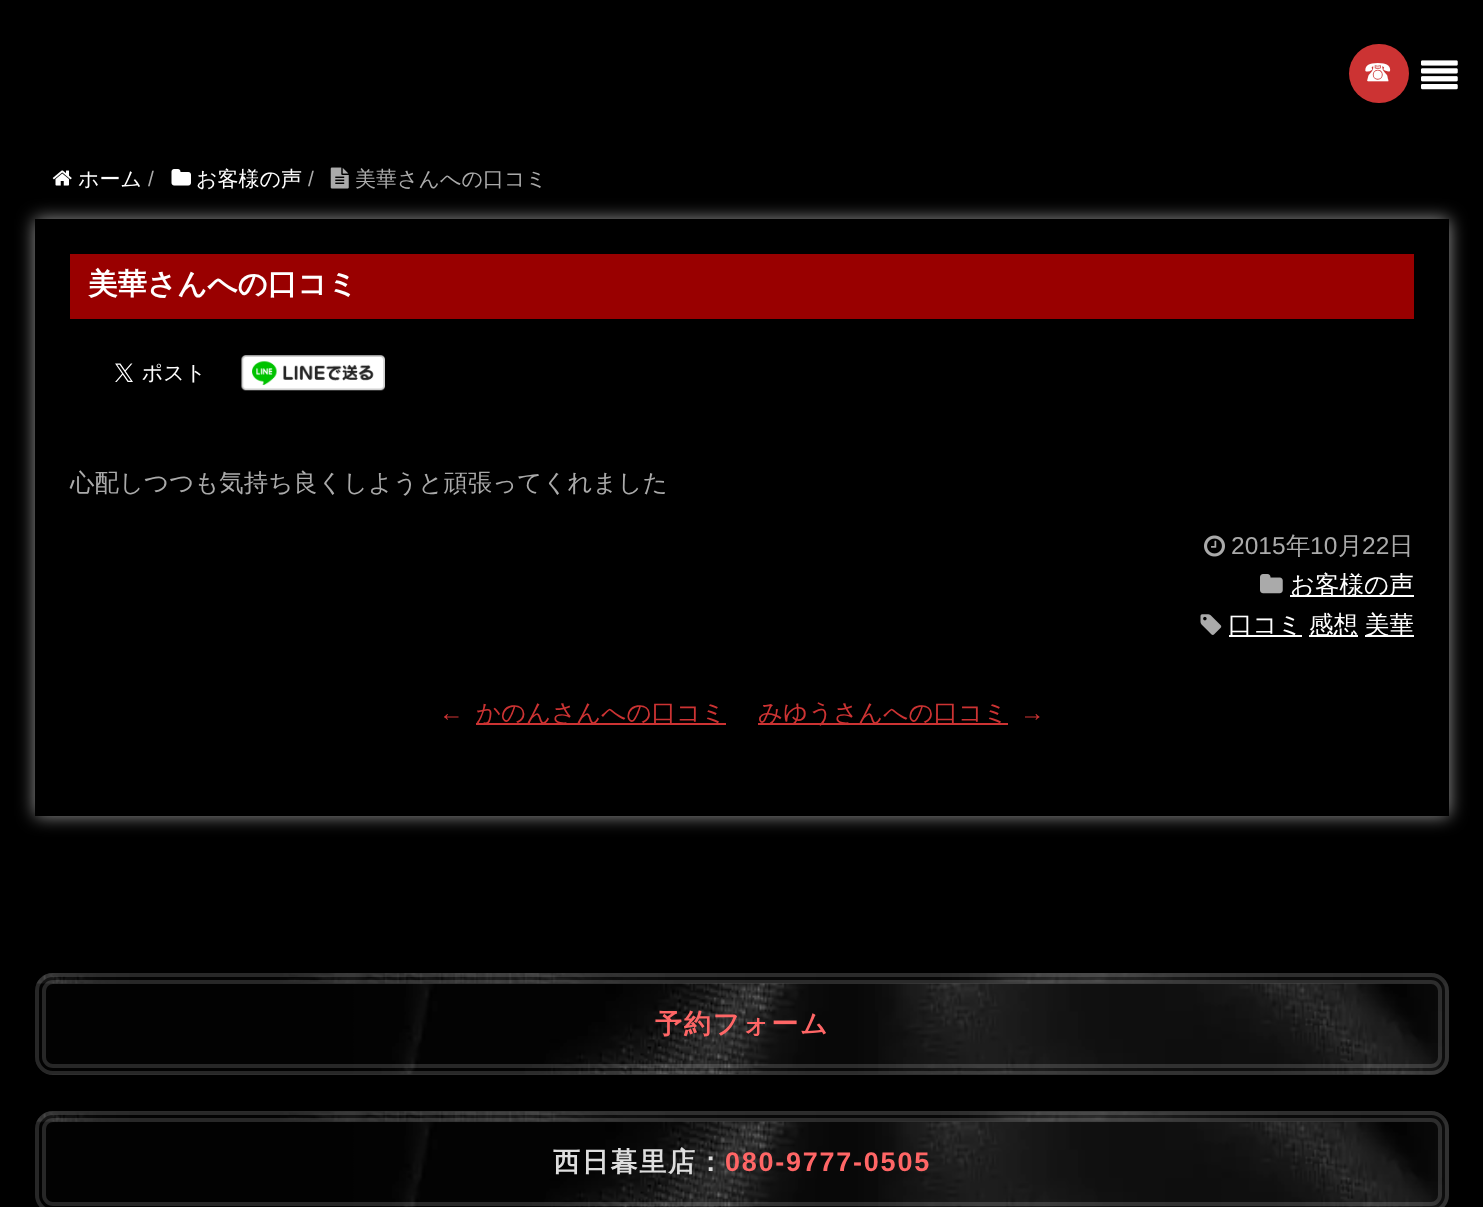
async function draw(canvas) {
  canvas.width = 1483;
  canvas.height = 1207;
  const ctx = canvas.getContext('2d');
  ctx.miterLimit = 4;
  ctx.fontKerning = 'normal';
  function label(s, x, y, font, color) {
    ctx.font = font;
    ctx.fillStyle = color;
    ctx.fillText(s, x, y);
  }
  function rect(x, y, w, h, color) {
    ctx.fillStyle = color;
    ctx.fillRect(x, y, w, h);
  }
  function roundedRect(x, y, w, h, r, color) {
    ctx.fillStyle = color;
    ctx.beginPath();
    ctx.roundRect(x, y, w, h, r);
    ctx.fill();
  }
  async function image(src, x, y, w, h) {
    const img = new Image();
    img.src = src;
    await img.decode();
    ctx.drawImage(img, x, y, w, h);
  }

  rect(0, 0, 1483, 1207, '#000');
  roundedRect(1349, 44, 60, 59, 29.5, '#c33');
  ctx.letterSpacing = '3px';
  label('☎︎', 1363, 82, '500 29.5px WenQuanYi Zen Hei', '#fff');
  await image('assets/img1.png', 1421, 60, 37, 30);
  await image('assets/img2.png', 52, 170, 20, 16);
  ctx.letterSpacing = '0px';
  label('ホーム', 78, 186, '500 21px WenQuanYi Zen Hei', '#fff');
  label('/', 148, 186, '21px Liberation Sans', '#aaa');
  await image('assets/img3.png', 171, 169, 20, 17);
  label('お客様の声', 196, 186, '500 21px WenQuanYi Zen Hei', '#fff');
  label('/', 308, 186, '21px Liberation Sans', '#aaa');
  await image('assets/img4.png', 330, 167, 19, 22);
  label('美華さんへの口コミ', 355, 186, '500 21px WenQuanYi Zen Hei', '#aaa');
  ctx.fillStyle = '#999';
  ctx.filter = 'blur(9px)';
  ctx.beginPath();
  ctx.rect(35, 219, 1414, 597);
  ctx.fill();
  ctx.filter = 'none';
  rect(35, 219, 1414, 597, '#000');
  rect(70, 254, 1344, 65, '#900');
  label('美華さんへの口コミ', 88, 294, 'bold 29.5px WenQuanYi Zen Hei', '#fff');
  await image('assets/img5.png', 115, 363, 86, 20);
  await image('assets/img6.png', 241, 355, 144, 36);
  label('心配しつつも気持ち良くしようと頑張ってくれました', 70, 491, '500 24.5px WenQuanYi Zen Hei', '#aaa');
  await image('assets/img7.png', 1204, 535, 21, 22);
  label('2015', 1231, 554, '24.5px Liberation Sans', '#aaa');
  label('年', 1286, 554, '500 24.5px WenQuanYi Zen Hei', '#aaa');
  label('10', 1310, 554, '24.5px Liberation Sans', '#aaa');
  label('月', 1338, 554, '500 24.5px WenQuanYi Zen Hei', '#aaa');
  label('22', 1362, 554, '24.5px Liberation Sans', '#aaa');
  label('日', 1389, 554, '500 24.5px WenQuanYi Zen Hei', '#aaa');
  await image('assets/img8.png', 1260, 574, 23, 20);
  rect(1290, 595, 124, 2, '#fff');
  label('お客様の声', 1290, 593, '500 24.5px WenQuanYi Zen Hei', '#fff');
  await image('assets/img9.png', 1200, 614, 22, 21);
  rect(1229, 635, 73, 2, '#fff');
  label('口コミ', 1228, 633, '500 24.5px WenQuanYi Zen Hei', '#fff');
  rect(1309, 635, 49, 2, '#fff');
  label('感想', 1309, 633, '500 24.5px WenQuanYi Zen Hei', '#fff');
  rect(1365, 635, 49, 2, '#fff');
  label('美華', 1365, 633, '500 24.5px WenQuanYi Zen Hei', '#fff');
  label('←', 439, 721, '24.5px Liberation Sans', '#c33');
  rect(476, 723, 250, 2, '#c33');
  label('かのんさんへの口コミ', 476, 721, '500 24.5px WenQuanYi Zen Hei', '#c33');
  rect(758, 723, 250, 2, '#c33');
  label('みゆうさんへの口コミ', 758, 721, '500 24.5px WenQuanYi Zen Hei', '#c33');
  label('→', 1020, 721, '24.5px Liberation Sans', '#c33');
  roundedRect(35, 973, 1414, 102, 18, '#0d0d0d');
  await image('assets/img10.png', 35, 973, 1414, 102);
  ctx.beginPath();
  ctx.roundRect(37, 975, 1410, 98, 16);
  ctx.strokeStyle = '#ffffff26';
  ctx.lineWidth = 4;
  ctx.stroke();
  ctx.beginPath();
  ctx.roundRect(44, 982, 1396, 84, 9);
  ctx.stroke();
  ctx.letterSpacing = '1.75px';
  label('予約フォーム', 655, 1033, 'bold 27px WenQuanYi Zen Hei', '#f66');
  roundedRect(35, 1111, 1414, 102, 18, '#0d0d0d');
  await image('assets/img11.png', 35, 1111, 1414, 96);
  ctx.beginPath();
  ctx.roundRect(37, 1113, 1410, 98, 16);
  ctx.stroke();
  ctx.beginPath();
  ctx.roundRect(44, 1120, 1396, 84, 9);
  ctx.stroke();
  label('西日暮里店：', 553, 1171, 'bold 27px WenQuanYi Zen Hei', '#dedede');
  label('080-9777-0505', 725, 1171, 'bold 27px Liberation Sans', '#f66');
}

draw(document.querySelector('canvas'));
